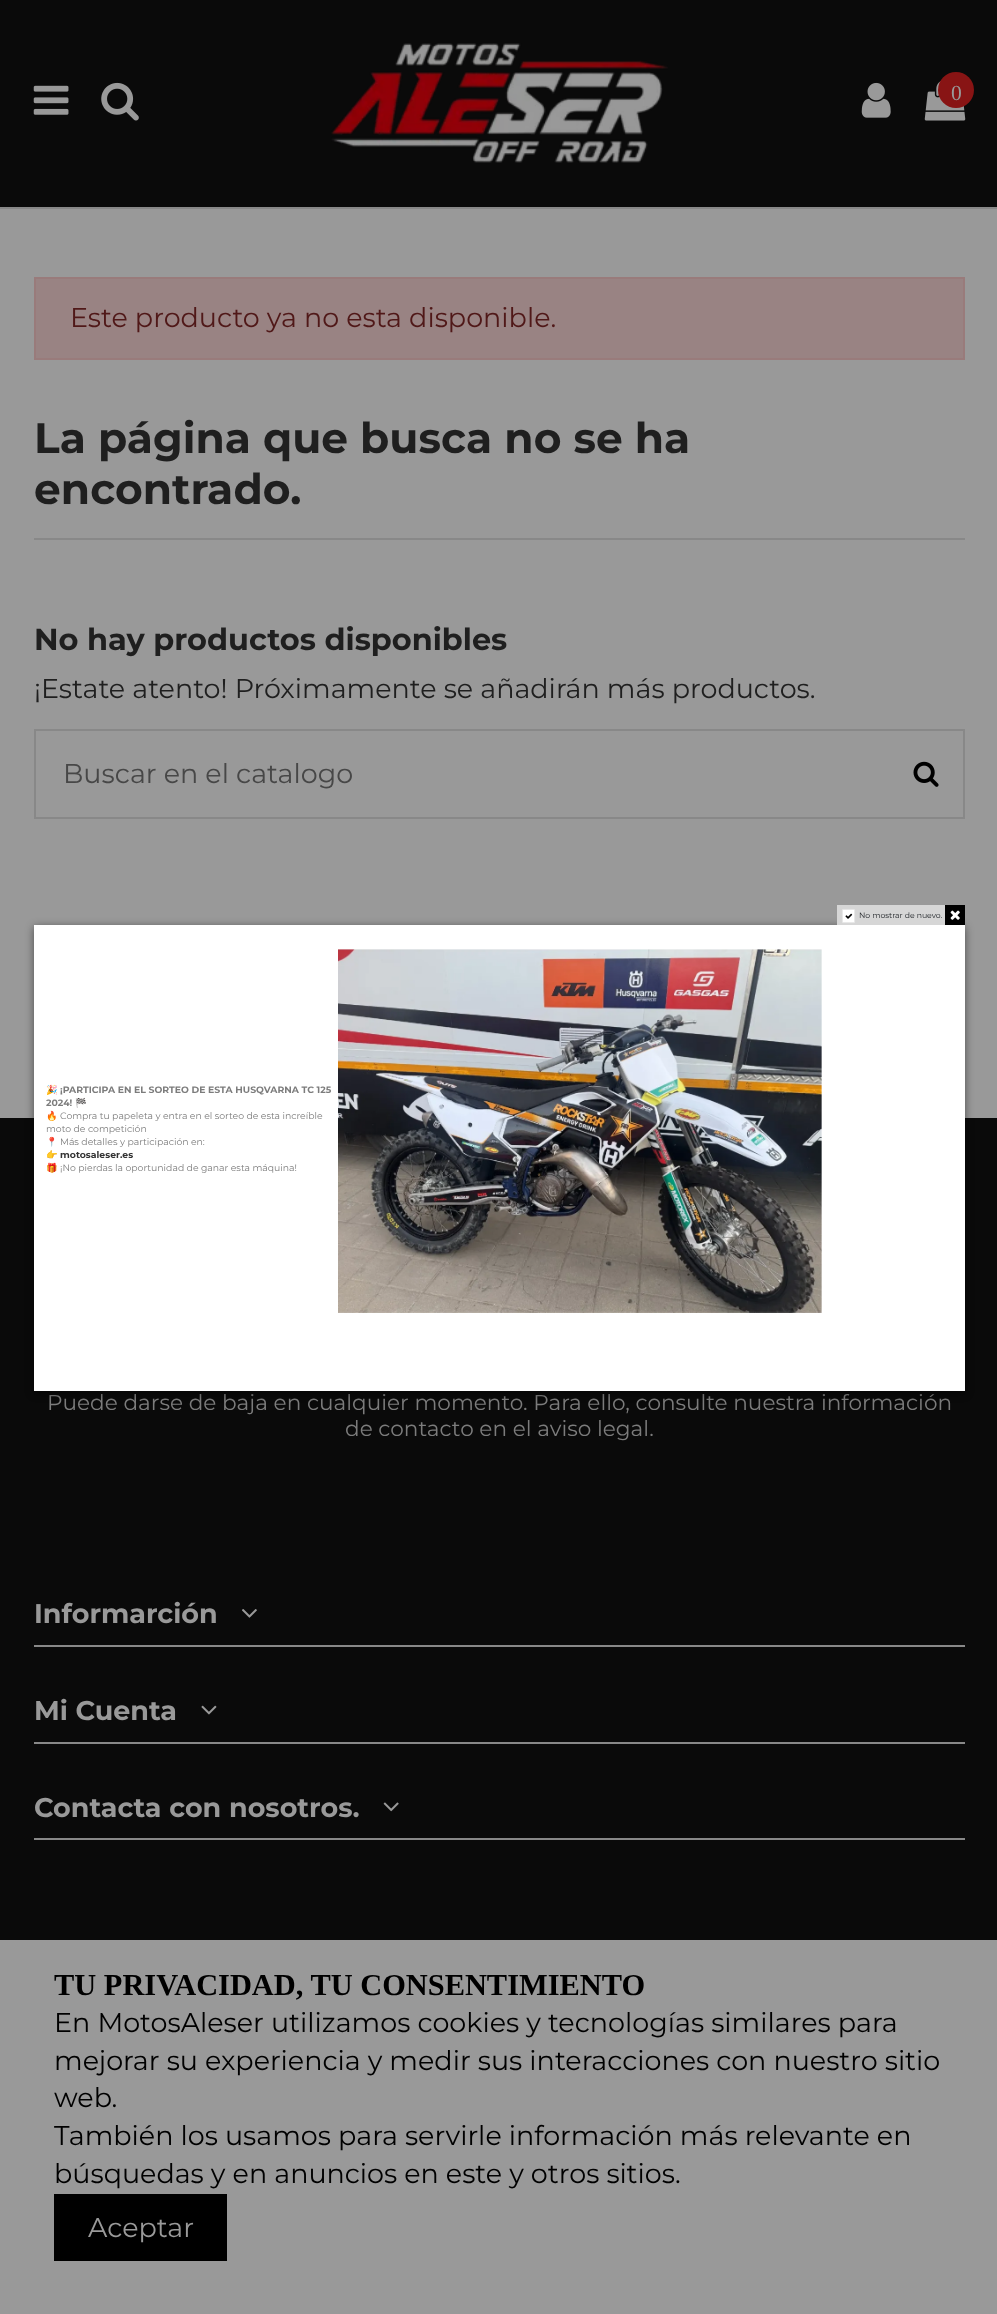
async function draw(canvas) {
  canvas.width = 997;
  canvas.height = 2314;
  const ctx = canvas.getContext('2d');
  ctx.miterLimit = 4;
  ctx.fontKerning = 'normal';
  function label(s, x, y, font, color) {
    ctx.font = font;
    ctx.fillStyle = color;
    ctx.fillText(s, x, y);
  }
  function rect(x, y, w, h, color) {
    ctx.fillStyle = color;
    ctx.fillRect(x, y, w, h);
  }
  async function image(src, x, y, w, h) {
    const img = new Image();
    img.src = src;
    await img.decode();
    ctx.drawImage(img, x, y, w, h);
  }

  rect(0, 0, 997, 2314, '#999');
  rect(0, 0, 997, 207, '#0a0a0a');
  rect(0, 207, 997, 2, '#888');
  await image('assets/img1.png', 33, 85, 36, 30);
  await image('assets/img2.png', 101, 82, 38, 39);
  await image('assets/img3.png', 331, 43, 337, 120);
  await image('assets/img4.png', 861, 82, 30, 36);
  await image('assets/img5.png', 924, 81, 42, 40);
  ctx.fillStyle = '#881414';
  ctx.beginPath();
  ctx.arc(956, 90, 18, 0, 2 * Math.PI);
  ctx.fill();
  label('0', 951, 100, '21.6px Liberation Serif', '#999');
  ctx.fillStyle = '#998383';
  ctx.beginPath();
  ctx.rect(35, 278, 929, 81);
  ctx.fill();
  ctx.strokeStyle = '#997b7b';
  ctx.lineWidth = 2;
  ctx.stroke();
  label('Este producto ya no esta disponible.', 70, 327, '27px Montserrat', '#501818');
  rect(34, 538, 931, 2, '#888');
  label('La página que busca no se ha', 34, 453, 'bold 42.4px Montserrat', '#1f1f1f');
  label('encontrado.', 34, 504, 'bold 42.4px Montserrat', '#1f1f1f');
  label('No hay productos disponibles', 34, 650, 'bold 30.4px Montserrat', '#1f1f1f');
  label('¡Estate atento! Próximamente se añadirán más productos.', 34, 698, '27px Montserrat', '#1f1f1f');
  ctx.strokeStyle = '#888';
  ctx.strokeRect(35, 730, 929, 88);
  label('Buscar en el catalogo', 63, 783, '27px Montserrat', '#474747');
  await image('assets/img6.png', 913, 761, 26, 26);
  rect(0, 1118, 997, 822, '#0a0a0a');
  label('Puede darse de baja en cualquier momento. Para ello, consulte nuestra información', 47, 1410, '21.6px Montserrat', '#7c7c7c');
  label('de contacto en el aviso legal.', 345, 1436, '21.6px Montserrat', '#7c7c7c');
  rect(34, 1645, 931, 2, '#888');
  label('Informarción', 34, 1623, 'bold 27px Montserrat', '#999');
  await image('assets/img7.png', 242, 1609, 15, 9);
  rect(34, 1742, 931, 2, '#888');
  label('Mi Cuenta', 34, 1720, 'bold 27px Montserrat', '#999');
  await image('assets/img8.png', 201, 1705, 16, 10);
  rect(34, 1838, 931, 2, '#888');
  label('Contacta con nosotros.', 34, 1817, 'bold 27px Montserrat', '#999');
  await image('assets/img9.png', 383, 1802, 16, 10);
  ctx.fillStyle = '#00000080';
  ctx.filter = 'blur(4px)';
  ctx.beginPath();
  ctx.rect(34, 927, 931, 466);
  ctx.fill();
  ctx.filter = 'none';
  rect(34, 925, 931, 466, '#fff');
  rect(837, 905, 108, 20, '#d6d6d6');
  ctx.fillStyle = '#fff';
  ctx.beginPath();
  ctx.rect(842.35, 909.35, 12.3, 13.3);
  ctx.fill();
  ctx.strokeStyle = '#e3e3e3';
  ctx.lineWidth = 0.7;
  ctx.stroke();
  await image('assets/img10.png', 845, 913, 8, 6);
  label('No mostrar de nuevo.', 859, 918, '7.75px Montserrat', '#212529');
  rect(945, 905, 20, 20, '#000');
  await image('assets/img11.png', 950, 910, 10, 10);
  label('🎉', 46, 1093, '9.3px Noto Color Emoji', '#7c7c7c');
  label('¡PARTICIPA EN EL SORTEO DE ESTA HUSQVARNA TC 125', 60, 1093, 'bold 9.3px Montserrat', '#7c7c7c');
  label('2024!', 46, 1106, 'bold 9.3px Montserrat', '#7c7c7c');
  label('🏁', 75, 1106, '9.3px Noto Color Emoji', '#7c7c7c');
  label('🔥', 46, 1119, '9.3px Noto Color Emoji', '#7c7c7c');
  label('Compra tu papeleta y entra en el sorteo de esta increíble', 60, 1119, '9.3px Montserrat', '#7c7c7c');
  label('moto de competición', 46, 1132, '9.3px Montserrat', '#7c7c7c');
  label('📍', 46, 1145, '9.3px Noto Color Emoji', '#7c7c7c');
  label('Más detalles y participación en:', 60, 1145, '9.3px Montserrat', '#7c7c7c');
  label('👉', 46, 1158, '9.3px Noto Color Emoji', '#7c7c7c');
  label('motosaleser.es', 60, 1158, 'bold 9.3px Montserrat', '#333');
  label('🎁', 46, 1171, '9.3px Noto Color Emoji', '#7c7c7c');
  label('¡No pierdas la oportunidad de ganar esta máquina!', 60, 1171, '9.3px Montserrat', '#7c7c7c');
  await image('assets/img12.png', 338, 949, 484, 364);
  label('TU PRIVACIDAD, TU CONSENTIMIENTO', 54, 1995, 'bold 30.4px Liberation Serif', '#000');
  label('En MotosAleser utilizamos cookies y tecnologías similares para', 54, 2032, '27px Montserrat', '#000');
  label('mejorar su experiencia y medir sus interacciones con nuestro sitio', 54, 2070, '27px Montserrat', '#000');
  label('web.', 54, 2107, '27px Montserrat', '#000');
  label('También los usamos para servirle información más relevante en', 54, 2145, '27px Montserrat', '#000');
  label('búsquedas y en anuncios en este y otros sitios.', 54, 2183, '27px Montserrat', '#000');
  rect(54, 2194, 173, 67, '#000');
  label('Aceptar', 88, 2237, '27px Montserrat', '#999');
}

draw(document.querySelector('canvas'));
